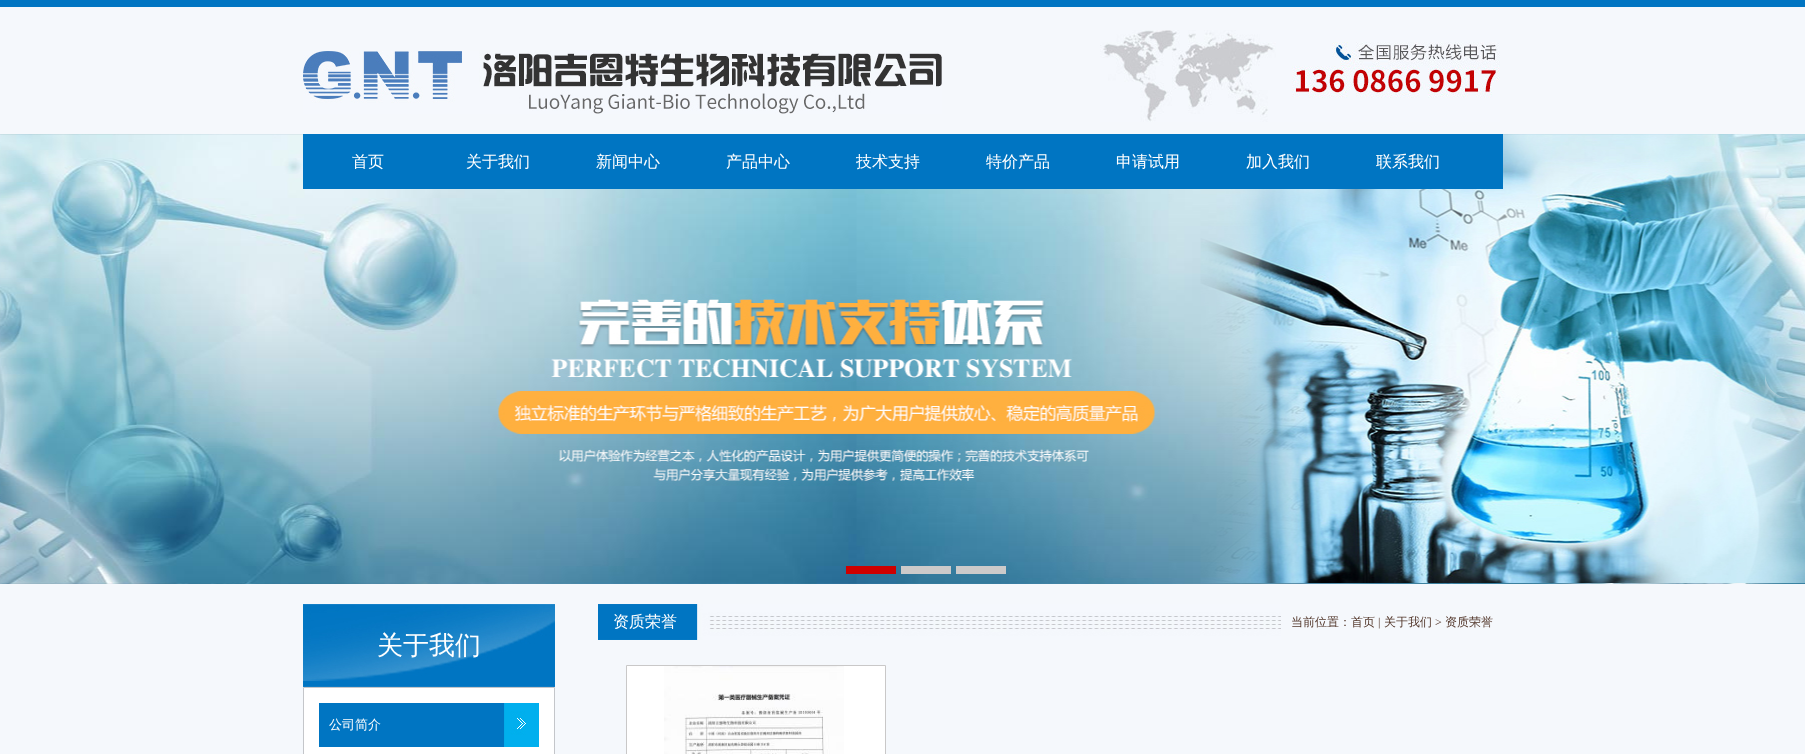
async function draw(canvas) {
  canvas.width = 1805;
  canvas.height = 754;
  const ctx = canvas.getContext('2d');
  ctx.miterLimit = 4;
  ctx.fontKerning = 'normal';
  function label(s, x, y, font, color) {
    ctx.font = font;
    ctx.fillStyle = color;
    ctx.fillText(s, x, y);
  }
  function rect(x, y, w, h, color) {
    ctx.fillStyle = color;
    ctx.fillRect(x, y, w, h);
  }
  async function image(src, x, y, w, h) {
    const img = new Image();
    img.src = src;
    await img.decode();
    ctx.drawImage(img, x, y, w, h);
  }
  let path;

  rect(0, 0, 1805, 754, '#f5f8fc');
  rect(0, 0, 1805, 7, '#0075c2');
  await image('assets/img1.png', 303, 51, 639, 63);
  await image('assets/img2.png', 1100, 30, 400, 92);
  await image('assets/img3.png', 0, 134, 1805, 450);
  rect(846, 566, 50, 8, '#cf0000');
  rect(901, 566, 50, 8, '#cccaca');
  rect(956, 566, 50, 8, '#cccaca');
  rect(303, 134, 1200, 55, '#0075c2');
  label('首页', 352, 167, '500 16px WenQuanYi Zen Hei', '#fff');
  label('关于我们', 466, 167, '500 16px WenQuanYi Zen Hei', '#fff');
  label('新闻中心', 596, 167, '500 16px WenQuanYi Zen Hei', '#fff');
  label('产品中心', 726, 167, '500 16px WenQuanYi Zen Hei', '#fff');
  label('技术支持', 856, 167, '500 16px WenQuanYi Zen Hei', '#fff');
  label('特价产品', 986, 167, '500 16px WenQuanYi Zen Hei', '#fff');
  label('申请试用', 1116, 167, '500 16px WenQuanYi Zen Hei', '#fff');
  label('加入我们', 1246, 167, '500 16px WenQuanYi Zen Hei', '#fff');
  label('联系我们', 1376, 167, '500 16px WenQuanYi Zen Hei', '#fff');
  ctx.save();
  ctx.beginPath();
  ctx.rect(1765, 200, 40, 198);
  ctx.clip();
  path = new Path2D('M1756 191H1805V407H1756ZM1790 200H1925V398H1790C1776 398 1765 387 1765 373V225C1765 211 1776 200 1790 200Z');
  ctx.clip(path, 'evenodd');
  ctx.fillStyle = '#e4e8ec';
  ctx.filter = 'blur(2.5px)';
  ctx.beginPath();
  ctx.roundRect(1765, 200, 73, 198, 25);
  ctx.fill();
  ctx.filter = 'none';
  ctx.restore();
  await image('assets/img4.png', 598, 604, 683, 36);
  label('资质荣誉', 613, 627, '500 16px WenQuanYi Zen Hei', '#fff');
  label('当前位置：首页', 1291, 626, '500 12px WenQuanYi Zen Hei', '#52362a');
  label('|', 1378, 626, '12px Liberation Serif', '#52362a');
  label('关于我们', 1384, 626, '500 12px WenQuanYi Zen Hei', '#52362a');
  label('>', 1435, 626, '12px Liberation Serif', '#52362a');
  label('资质荣誉', 1445, 626, '500 12px WenQuanYi Zen Hei', '#52362a');
  ctx.fillStyle = '#fff';
  ctx.beginPath();
  ctx.rect(626.5, 665.5, 259, 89);
  ctx.fill();
  ctx.strokeStyle = '#c9c8c8';
  ctx.stroke();
  await image('assets/img5.png', 664, 666, 180, 88);
  await image('assets/img6.png', 303, 604, 252, 83);
  label('关于我们', 377, 654, '500 26px WenQuanYi Zen Hei', '#fff');
  ctx.beginPath();
  ctx.rect(303.5, 687.5, 251, 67);
  ctx.fill();
  ctx.strokeStyle = '#c4c6ca';
  ctx.stroke();
  await image('assets/img7.png', 319, 703, 220, 44);
  label('公司简介', 329, 729, '500 13px WenQuanYi Zen Hei', '#fff');
}

draw(document.querySelector('canvas'));
